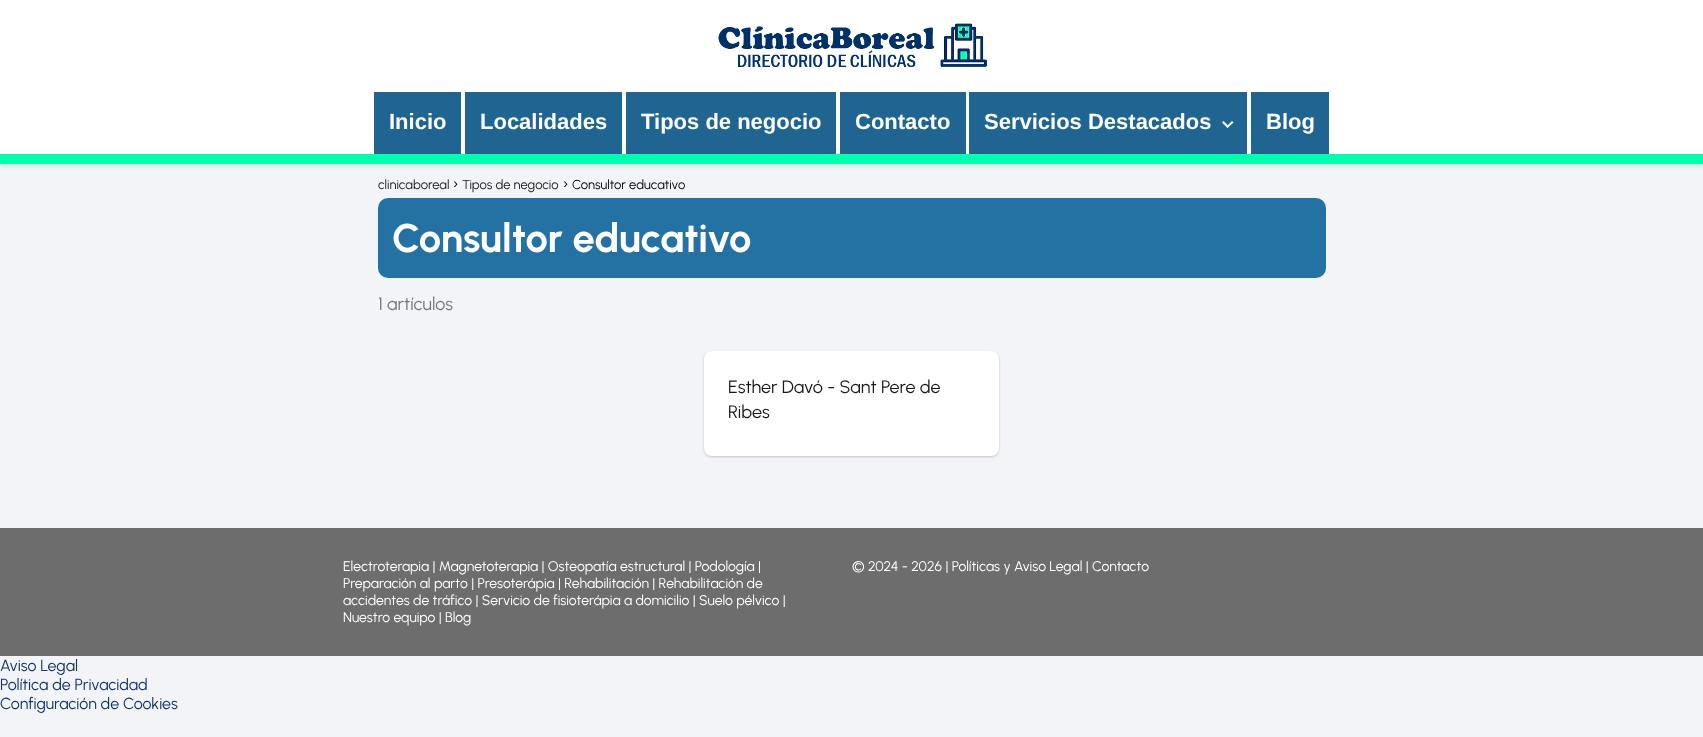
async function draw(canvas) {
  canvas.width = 1703;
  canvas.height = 737;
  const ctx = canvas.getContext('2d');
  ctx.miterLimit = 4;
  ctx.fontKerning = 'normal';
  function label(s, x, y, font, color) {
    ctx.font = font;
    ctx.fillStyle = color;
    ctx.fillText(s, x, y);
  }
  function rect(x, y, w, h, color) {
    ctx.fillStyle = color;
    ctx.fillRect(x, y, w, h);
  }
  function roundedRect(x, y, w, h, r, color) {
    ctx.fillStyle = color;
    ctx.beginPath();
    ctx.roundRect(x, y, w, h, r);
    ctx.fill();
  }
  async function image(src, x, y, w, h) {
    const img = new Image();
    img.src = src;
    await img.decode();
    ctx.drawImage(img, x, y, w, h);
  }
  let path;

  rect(0, 0, 1703, 737, '#f3f4f8');
  ctx.fillStyle = '#0000001a';
  ctx.filter = 'blur(2px)';
  ctx.beginPath();
  ctx.rect(0, 94, 1703, 72);
  ctx.fill();
  ctx.filter = 'none';
  rect(0, 0, 1703, 154, '#fff');
  await image('assets/img1.png', 718, 23, 269, 44);
  rect(0, 154, 1703, 10, '#00ffaf');
  rect(374, 92, 87, 62, '#206592');
  label('Inicio', 389, 129, 'bold 22px Liberation Sans', '#fff');
  rect(465, 92, 157, 62, '#206592');
  label('Localidades', 480, 129, 'bold 22px Liberation Sans', '#fff');
  rect(626, 92, 210, 62, '#206592');
  label('Tipos de negocio', 641, 129, 'bold 22px Liberation Sans', '#fff');
  rect(840, 92, 126, 62, '#206592');
  label('Contacto', 855, 129, 'bold 22px Liberation Sans', '#fff');
  rect(969, 92, 278, 62, '#206592');
  label('Servicios Destacados', 984, 129, 'bold 22px Liberation Sans', '#fff');
  path = new Path2D('M1232 121L1233.5 122.5L1227.5 128L1226.5 126.5Z');
  ctx.fill(path);
  path = new Path2D('M1223.5 121L1229 126.5L1227.5 128L1222 122.5Z');
  ctx.fill(path);
  rect(1251, 92, 78, 62, '#206592');
  label('Blog', 1266, 129, 'bold 22px Liberation Sans', '#fff');
  label('clinicaboreal', 378, 189, '13px Urbanist', '#181818');
  label('›', 453, 189, '16px Urbanist', '#000');
  label('Tipos de negocio', 462, 189, '13px Urbanist', '#181818');
  label('›', 563, 189, '16px Urbanist', '#000');
  label('Consultor educativo', 572, 189, '13px Urbanist', '#000');
  roundedRect(378, 198, 948, 80, 10, '#2471a3');
  label('Consultor educativo', 392, 252, 'bold 40px Urbanist', '#fff');
  label('1 artículos', 378, 310, '18px Urbanist', '#767676');
  ctx.fillStyle = '#00000033';
  ctx.filter = 'blur(1px)';
  ctx.beginPath();
  ctx.roundRect(704, 352, 295, 105, 8);
  ctx.fill();
  ctx.filter = 'none';
  roundedRect(704, 351, 295, 105, 8, '#fff');
  label('Esther Davó - Sant Pere de', 728, 393, '18px Urbanist', '#181818');
  label('Ribes', 728, 418, '18px Urbanist', '#181818');
  rect(0, 528, 1703, 128, '#6d6d6d');
  label('Electroterapia | Magnetoterapia | Osteopatía estructural | Podología |', 343, 571, '14px Urbanist', '#fff');
  label('Preparación al parto | Presoterápia | Rehabilitación | Rehabilitación de', 343, 588, '14px Urbanist', '#fff');
  label('accidentes de tráfico | Servicio de fisioterápia a domicilio | Suelo pélvico |', 343, 605, '14px Urbanist', '#fff');
  label('Nuestro equipo | Blog', 343, 622, '14px Urbanist', '#fff');
  label('© 2024 - 2026 | Políticas y Aviso Legal | Contacto', 852, 571, '14px Urbanist', '#fff');
  label('Aviso Legal', 0, 671, '16px Urbanist', '#143565');
  label('Política de Privacidad', 0, 690, '16px Urbanist', '#143565');
  label('Configuración de Cookies', 0, 709, '16px Urbanist', '#143565');
}

draw(document.querySelector('canvas'));
